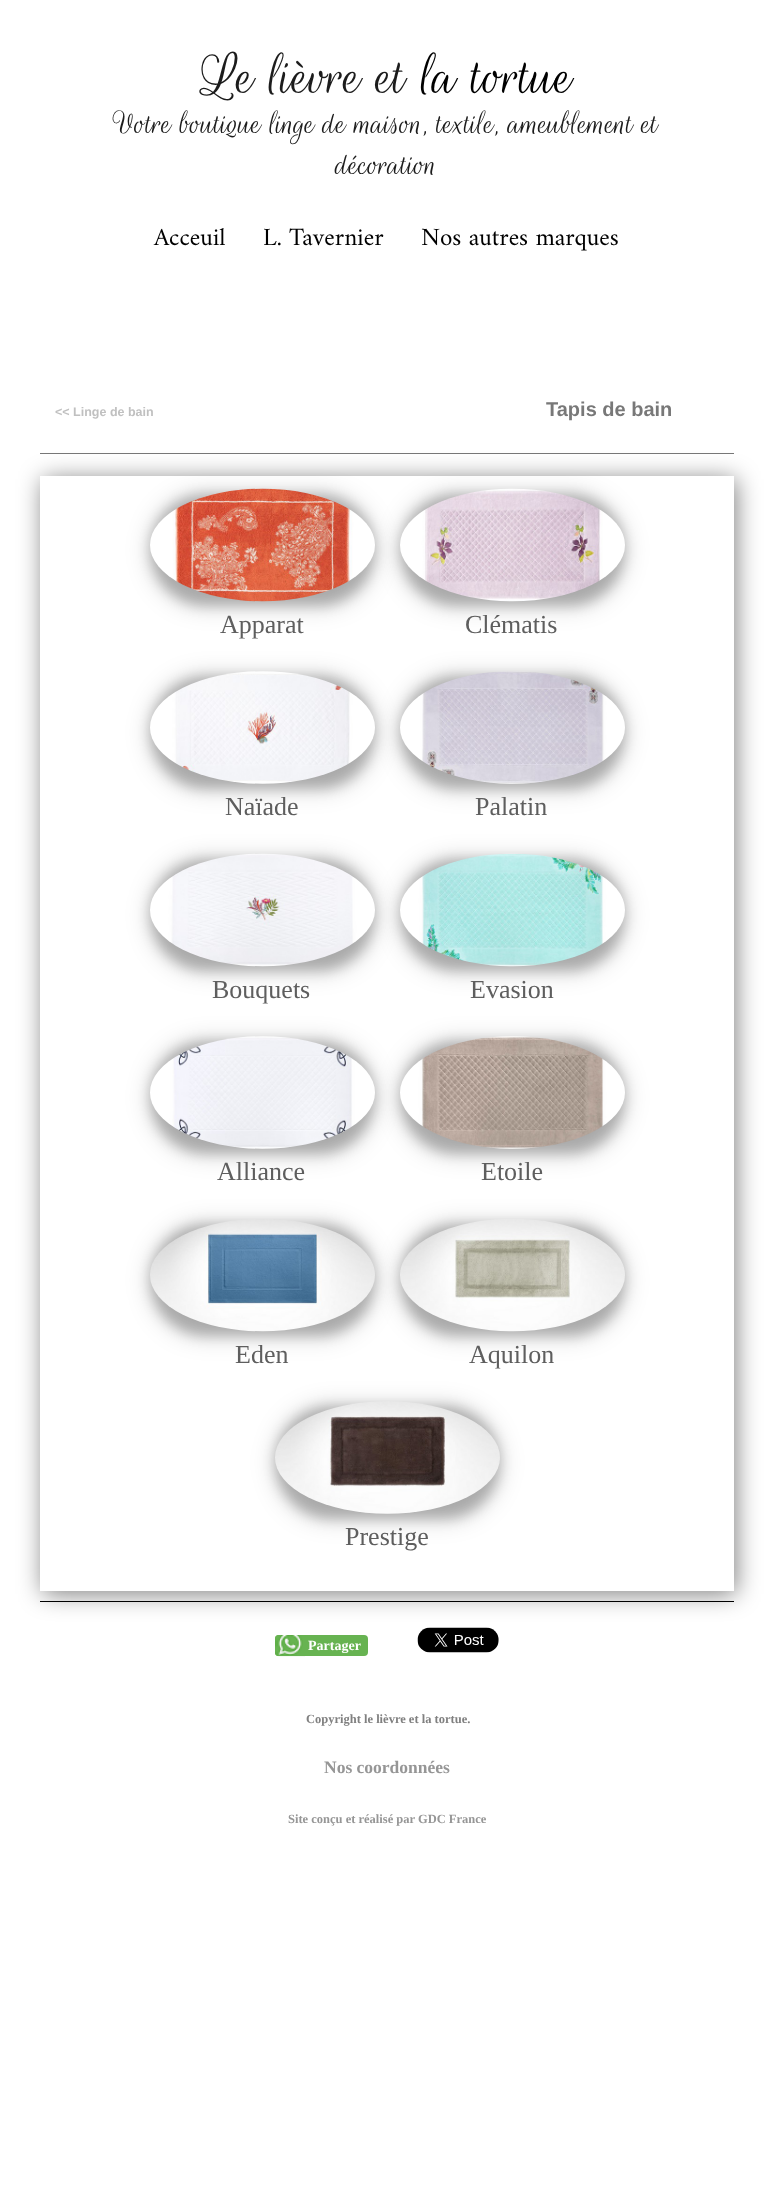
async function draw(canvas) {
  canvas.width = 773;
  canvas.height = 2192;
  const ctx = canvas.getContext('2d');
  ctx.miterLimit = 4;
  ctx.fontKerning = 'normal';
  function label(s, x, y, font, color) {
    ctx.font = font;
    ctx.fillStyle = color;
    ctx.fillText(s, x, y);
  }
  function rect(x, y, w, h, color) {
    ctx.fillStyle = color;
    ctx.fillRect(x, y, w, h);
  }
  function roundedRect(x, y, w, h, r, color) {
    ctx.fillStyle = color;
    ctx.beginPath();
    ctx.roundRect(x, y, w, h, r);
    ctx.fill();
  }
  async function image(src, x, y, w, h) {
    const img = new Image();
    img.src = src;
    await img.decode();
    ctx.drawImage(img, x, y, w, h);
  }
  let path;

  rect(0, 0, 773, 2192, '#fff');
  label('Le lièvre et', 201, 93, '62.5px Rouge Script', '#1c1c1c');
  label('la tortue', 422, 93, '62.5px Rouge Script', '#000');
  label('Votre boutique linge de maison, textile, ameublement et', 115, 133, '35px Rouge Script', '#1c1c1c');
  label('décoration', 336, 174, '35px Rouge Script', '#1c1c1c');
  label('Acceuil', 154, 245, '25px Amiri', '#000');
  label('L. Tavernier', 263, 245, '25px Amiri', '#000');
  label('Nos autres marques', 421, 245, '25px Amiri', '#000');
  rect(40, 453, 694, 1, '#787878');
  label('<< Linge de bain', 55, 416, 'bold 12.5px Liberation Sans', '#c0c0c0');
  label('Tapis de bain', 546, 416, 'bold 20px Liberation Sans', '#787878');
  rect(40, 1601, 694, 1, '#000');
  ctx.save();
  path = new Path2D('M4 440H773V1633H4ZM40 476H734V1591H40Z');
  ctx.clip(path, 'evenodd');
  ctx.fillStyle = '#00000080';
  ctx.filter = 'blur(12.5px)';
  ctx.beginPath();
  ctx.rect(43, 479, 693, 1115);
  ctx.fill();
  ctx.filter = 'none';
  ctx.restore();
  ctx.fillStyle = '#00000030';
  ctx.filter = 'blur(12.5px)';
  ctx.beginPath();
  ctx.roundRect(150, 494, 225, 112, 56);
  ctx.fill();
  ctx.filter = 'none';
  ctx.fillStyle = '#00000033';
  ctx.filter = 'blur(6px)';
  ctx.beginPath();
  ctx.roundRect(150, 494, 225, 112, 56);
  ctx.fill();
  ctx.filter = 'none';
  await image('assets/img1.png', 150, 488, 225, 114);
  label('Apparat', 220, 633, '26px Liberation Serif', '#5e5e5e');
  ctx.fillStyle = '#00000030';
  ctx.filter = 'blur(12.5px)';
  ctx.beginPath();
  ctx.roundRect(400, 494, 225, 112, 56);
  ctx.fill();
  ctx.filter = 'none';
  ctx.fillStyle = '#00000033';
  ctx.filter = 'blur(6px)';
  ctx.beginPath();
  ctx.roundRect(400, 494, 225, 112, 56);
  ctx.fill();
  ctx.filter = 'none';
  await image('assets/img2.png', 400, 488, 225, 114);
  label('Clématis', 465, 633, '26px Liberation Serif', '#5e5e5e');
  ctx.fillStyle = '#00000030';
  ctx.filter = 'blur(12.5px)';
  ctx.beginPath();
  ctx.roundRect(150, 676, 225, 113, 56.5);
  ctx.fill();
  ctx.filter = 'none';
  ctx.fillStyle = '#00000033';
  ctx.filter = 'blur(6px)';
  ctx.beginPath();
  ctx.roundRect(150, 676, 225, 113, 56.5);
  ctx.fill();
  ctx.filter = 'none';
  await image('assets/img3.png', 150, 671, 225, 113);
  label('Naïade', 225, 815, '26px Liberation Serif', '#5e5e5e');
  ctx.fillStyle = '#00000030';
  ctx.filter = 'blur(12.5px)';
  ctx.beginPath();
  ctx.roundRect(400, 676, 225, 113, 56.5);
  ctx.fill();
  ctx.filter = 'none';
  ctx.fillStyle = '#00000033';
  ctx.filter = 'blur(6px)';
  ctx.beginPath();
  ctx.roundRect(400, 676, 225, 113, 56.5);
  ctx.fill();
  ctx.filter = 'none';
  await image('assets/img4.png', 400, 671, 225, 113);
  label('Palatin', 475, 815, '26px Liberation Serif', '#5e5e5e');
  ctx.fillStyle = '#00000030';
  ctx.filter = 'blur(12.5px)';
  ctx.beginPath();
  ctx.roundRect(150, 859, 225, 112, 56);
  ctx.fill();
  ctx.filter = 'none';
  ctx.fillStyle = '#00000033';
  ctx.filter = 'blur(6px)';
  ctx.beginPath();
  ctx.roundRect(150, 859, 225, 112, 56);
  ctx.fill();
  ctx.filter = 'none';
  await image('assets/img5.png', 150, 853, 225, 114);
  label('Bouquets', 212, 998, '26px Liberation Serif', '#5e5e5e');
  ctx.fillStyle = '#00000030';
  ctx.filter = 'blur(12.5px)';
  ctx.beginPath();
  ctx.roundRect(400, 859, 225, 112, 56);
  ctx.fill();
  ctx.filter = 'none';
  ctx.fillStyle = '#00000033';
  ctx.filter = 'blur(6px)';
  ctx.beginPath();
  ctx.roundRect(400, 859, 225, 112, 56);
  ctx.fill();
  ctx.filter = 'none';
  await image('assets/img6.png', 400, 853, 225, 114);
  label('Evasion', 470, 998, '26px Liberation Serif', '#5e5e5e');
  ctx.fillStyle = '#00000030';
  ctx.filter = 'blur(12.5px)';
  ctx.beginPath();
  ctx.roundRect(150, 1041, 225, 113, 56.5);
  ctx.fill();
  ctx.filter = 'none';
  ctx.fillStyle = '#00000033';
  ctx.filter = 'blur(6px)';
  ctx.beginPath();
  ctx.roundRect(150, 1041, 225, 113, 56.5);
  ctx.fill();
  ctx.filter = 'none';
  await image('assets/img7.png', 150, 1036, 225, 113);
  label('Alliance', 217, 1180, '26px Liberation Serif', '#5e5e5e');
  ctx.fillStyle = '#00000030';
  ctx.filter = 'blur(12.5px)';
  ctx.beginPath();
  ctx.roundRect(400, 1041, 225, 113, 56.5);
  ctx.fill();
  ctx.filter = 'none';
  ctx.fillStyle = '#00000033';
  ctx.filter = 'blur(6px)';
  ctx.beginPath();
  ctx.roundRect(400, 1041, 225, 113, 56.5);
  ctx.fill();
  ctx.filter = 'none';
  await image('assets/img8.png', 400, 1036, 225, 113);
  label('Etoile', 481, 1180, '26px Liberation Serif', '#5e5e5e');
  ctx.fillStyle = '#00000030';
  ctx.filter = 'blur(12.5px)';
  ctx.beginPath();
  ctx.roundRect(150, 1224, 225, 112, 56);
  ctx.fill();
  ctx.filter = 'none';
  ctx.fillStyle = '#00000033';
  ctx.filter = 'blur(6px)';
  ctx.beginPath();
  ctx.roundRect(150, 1224, 225, 112, 56);
  ctx.fill();
  ctx.filter = 'none';
  await image('assets/img9.png', 150, 1219, 225, 113);
  label('Eden', 235, 1363, '26px Liberation Serif', '#5e5e5e');
  ctx.fillStyle = '#00000030';
  ctx.filter = 'blur(12.5px)';
  ctx.beginPath();
  ctx.roundRect(400, 1224, 225, 112, 56);
  ctx.fill();
  ctx.filter = 'none';
  ctx.fillStyle = '#00000033';
  ctx.filter = 'blur(6px)';
  ctx.beginPath();
  ctx.roundRect(400, 1224, 225, 112, 56);
  ctx.fill();
  ctx.filter = 'none';
  await image('assets/img10.png', 400, 1219, 225, 113);
  label('Aquilon', 469, 1363, '26px Liberation Serif', '#5e5e5e');
  ctx.fillStyle = '#00000030';
  ctx.filter = 'blur(12.5px)';
  ctx.beginPath();
  ctx.roundRect(275, 1406, 225, 113, 56.5);
  ctx.fill();
  ctx.filter = 'none';
  ctx.fillStyle = '#00000033';
  ctx.filter = 'blur(6px)';
  ctx.beginPath();
  ctx.roundRect(275, 1406, 225, 113, 56.5);
  ctx.fill();
  ctx.filter = 'none';
  await image('assets/img11.png', 275, 1401, 225, 113);
  label('Prestige', 345, 1545, '26px Liberation Serif', '#5e5e5e');
  roundedRect(275, 1635, 93, 21, 4, '#67b351');
  await image('assets/img12.png', 275, 1635, 30, 22);
  label('Partager', 308, 1650, 'bold 14px Liberation Serif', '#fff');
  await image('assets/img13.png', 417, 1627, 82, 26);
  label('Copyright le lièvre et la tortue.', 306, 1723, 'bold 12.5px Liberation Serif', '#808080');
  label('Nos coordonnées', 324, 1773, 'bold 17.5px Liberation Serif', '#969696');
  label('Site conçu et réalisé par GDC France', 288, 1823, 'bold 12.5px Liberation Serif', '#969696');
}

draw(document.querySelector('canvas'));
